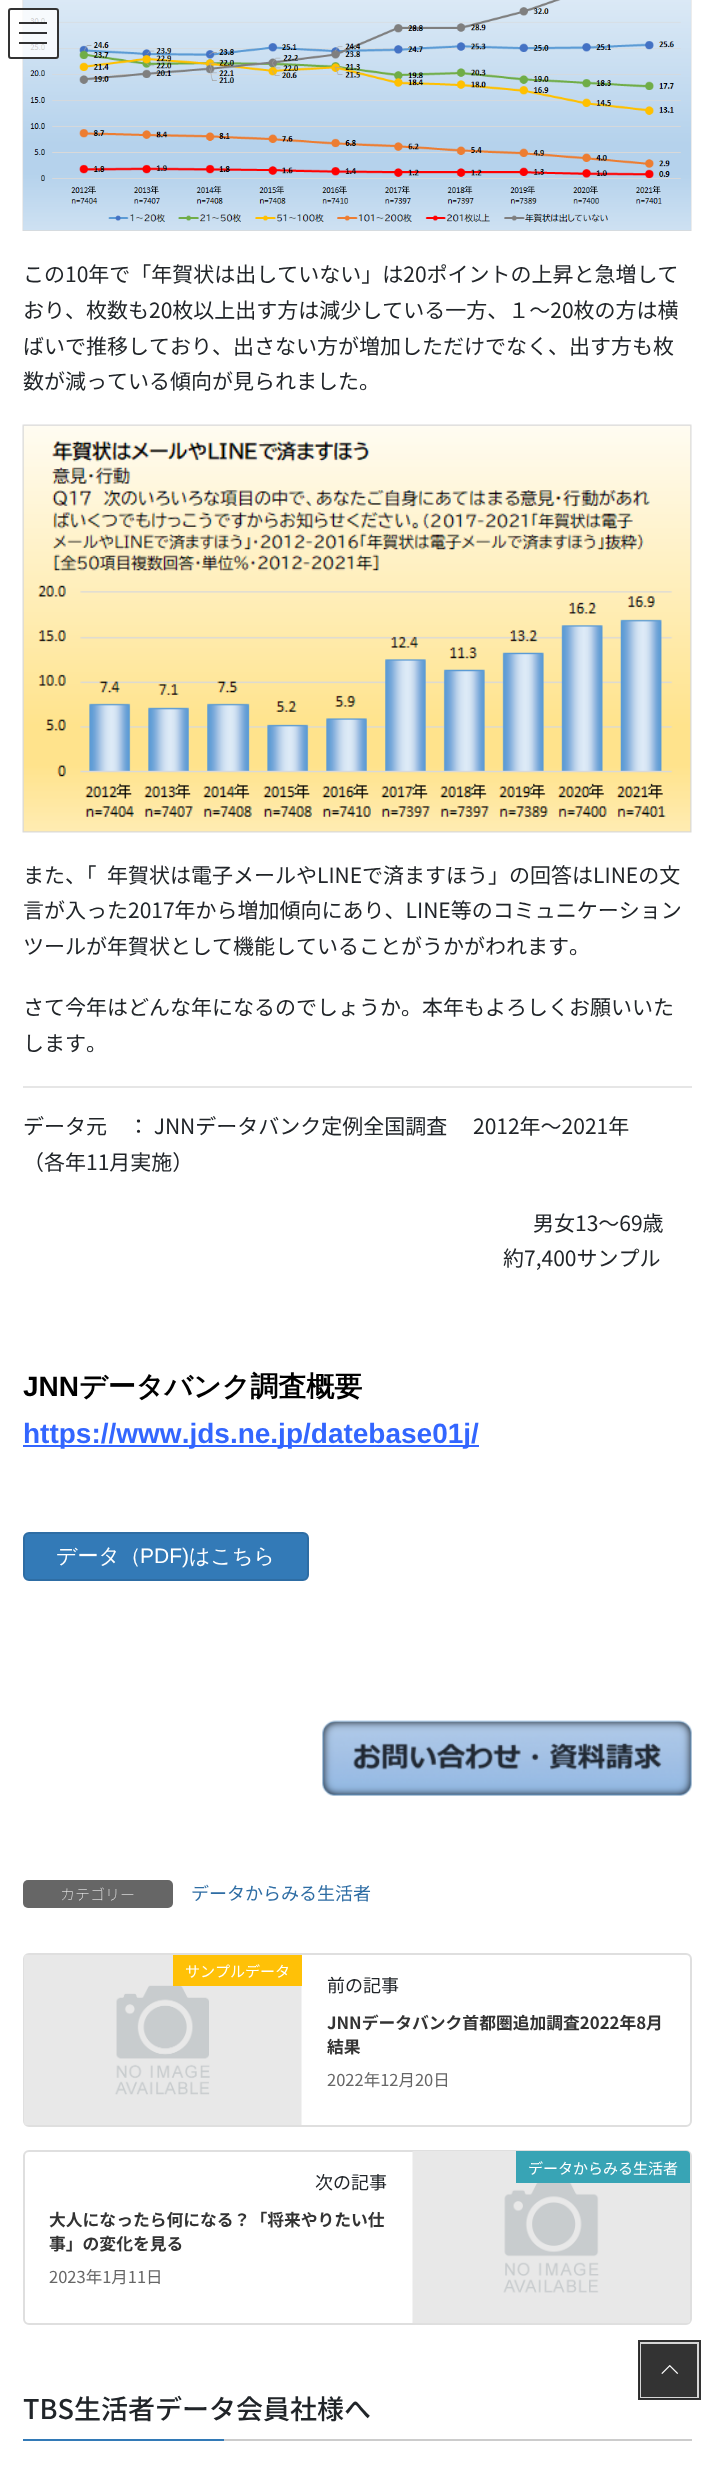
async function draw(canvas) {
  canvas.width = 714;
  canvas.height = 2472;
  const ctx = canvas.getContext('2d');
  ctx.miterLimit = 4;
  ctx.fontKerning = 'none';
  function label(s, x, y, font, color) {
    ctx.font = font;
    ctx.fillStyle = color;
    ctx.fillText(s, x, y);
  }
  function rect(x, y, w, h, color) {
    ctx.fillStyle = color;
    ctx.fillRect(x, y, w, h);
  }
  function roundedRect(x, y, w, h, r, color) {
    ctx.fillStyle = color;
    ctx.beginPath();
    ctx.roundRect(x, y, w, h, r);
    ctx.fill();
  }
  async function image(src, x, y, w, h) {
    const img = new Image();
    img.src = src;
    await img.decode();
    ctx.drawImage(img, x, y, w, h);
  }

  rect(0, 0, 714, 2472, '#fff');
  await image('assets/img1.png', 22, 0, 670, 231);
  roundedRect(8, 8, 51, 51, 3, '#ffffffcc');
  rect(19, 22, 28, 2, '#000000cc');
  rect(19, 32, 28, 2, '#000000cc');
  rect(19, 42, 28, 2, '#000000cc');
  ctx.beginPath();
  ctx.roundRect(9, 9, 49, 49, 2);
  ctx.strokeStyle = '#333';
  ctx.lineWidth = 2;
  ctx.stroke();
  label('この10年で「年賀状は出していない」は20ポイントの上昇と急増して', 23, 282, '21px Noto Sans JP', '#212529');
  label('おり、枚数も20枚以上出す方は減少している一方、１～20枚の方は横', 23, 318, '21px Noto Sans JP', '#212529');
  label('ばいで推移しており、出さない方が増加しただけでなく、出す方も枚', 23, 354, '21px Noto Sans JP', '#212529');
  label('数が減っている傾向が見られました。', 23, 389, '21px Noto Sans JP', '#212529');
  await image('assets/img2.png', 22, 424, 670, 409);
  label('また、「', 23, 883, '21px Noto Sans JP', '#212529');
  label('年賀状は電子メールやLINEで済ますほう」の回答はLINEの文', 107, 883, '21px Noto Sans JP', '#212529');
  label('言が入った2017年から増加傾向にあり、LINE等のコミュニケーション', 23, 918, '21px Noto Sans JP', '#212529');
  label('ツールが年賀状として機能していることがうかがわれます。', 23, 954, '21px Noto Sans JP', '#212529');
  label('さて今年はどんな年になるのでしょうか。本年もよろしくお願いいた', 23, 1015, '21px Noto Sans JP', '#212529');
  label('します。', 23, 1051, '21px Noto Sans JP', '#212529');
  rect(23, 1086, 669, 2, '#e6e6e6');
  label('データ元　： JNNデータバンク定例全国調査', 23, 1134, '21px Noto Sans JP', '#212529');
  label('2012年～2021年', 473, 1134, '21px Noto Sans JP', '#212529');
  label('（各年11月実施）', 23, 1170, '21px Noto Sans JP', '#212529');
  label('男女13～69歳', 533, 1231, '21px Noto Sans JP', '#212529');
  label('約7,400サンプル', 503, 1266, '21px Noto Sans JP', '#212529');
  label('JNN', 23, 1396, 'bold 28px Liberation Sans', '#000');
  label('データバンク調査概要', 79, 1396, 'bold 28px WenQuanYi Zen Hei', '#000');
  rect(23, 1445, 456, 2, '#36f');
  label('https://www.jds.ne.jp/datebase01j/', 23, 1443, 'bold 28px Liberation Sans', '#36f');
  ctx.fillStyle = '#337ab7';
  ctx.beginPath();
  ctx.roundRect(24, 1533, 284, 47, 5);
  ctx.fill();
  ctx.strokeStyle = '#2e6da4';
  ctx.stroke();
  label('データ（', 56, 1563, '500 21px WenQuanYi Zen Hei', '#fff');
  label('PDF)', 140, 1563, '21px Liberation Sans', '#fff');
  label('はこちら', 189, 1563, '500 21px WenQuanYi Zen Hei', '#fff');
  await image('assets/img3.png', 322, 1720, 370, 76);
  roundedRect(23, 1880, 150, 28, 5, '#666');
  label('カテゴリー', 60, 1900, '100 15px Noto Sans JP', '#fff');
  label('データからみる生活者', 191, 1900, '18px Noto Sans JP', '#2e6da4');
  ctx.beginPath();
  ctx.roundRect(24, 1954, 667, 172, 5);
  ctx.strokeStyle = '#dfdfdf';
  ctx.stroke();
  await image('assets/img4.png', 24, 1955, 278, 170);
  rect(173, 1955, 129, 31, '#ffc107');
  label('サンプルデータ', 185, 1977, '15px Noto Sans JP', '#fff');
  label('前の記事', 327, 1992, '18px Noto Sans JP', '#212529');
  label('JNNデータバンク首都圏追加調査2022年8月', 327, 2029, 'bold 16.8px Noto Sans JP', '#333');
  label('結果', 327, 2053, 'bold 16.8px Noto Sans JP', '#333');
  label('2022年12月20日', 327, 2086, '16.5px Noto Sans JP', '#666');
  ctx.beginPath();
  ctx.roundRect(24, 2151, 667, 173, 5);
  ctx.stroke();
  await image('assets/img5.png', 412, 2151, 278, 172);
  ctx.fillStyle = '#38a4b5';
  ctx.beginPath();
  ctx.roundRect(516, 2151, 174, 32, [0, 4, 0, 0]);
  ctx.fill();
  label('データからみる生活者', 528, 2174, '15px Noto Sans JP', '#fff');
  label('次の記事', 315, 2189, '18px Noto Sans JP', '#212529');
  label('大人になったら何になる？「将来やりたい仕', 49, 2226, 'bold 16.8px Noto Sans JP', '#333');
  label('事」の変化を見る', 49, 2250, 'bold 16.8px Noto Sans JP', '#333');
  label('2023年1月11日', 49, 2283, '16.5px Noto Sans JP', '#666');
  rect(224, 2439, 468, 2, '#ccc');
  label('TBS生活者データ会員社様へ', 23, 2419, '500 27px Noto Sans JP', '#212529');
  rect(23, 2439, 201, 2, '#337ab7');
  rect(641, 2344, 56, 53, '#333');
  await image('assets/img6.png', 661, 2365, 18, 9);
  ctx.strokeStyle = '#d6d6d6';
  ctx.strokeRect(640, 2343, 58, 55);
  ctx.strokeStyle = '#000000cc';
  ctx.strokeRect(639, 2341, 61, 58);
}

draw(document.querySelector('canvas'));
